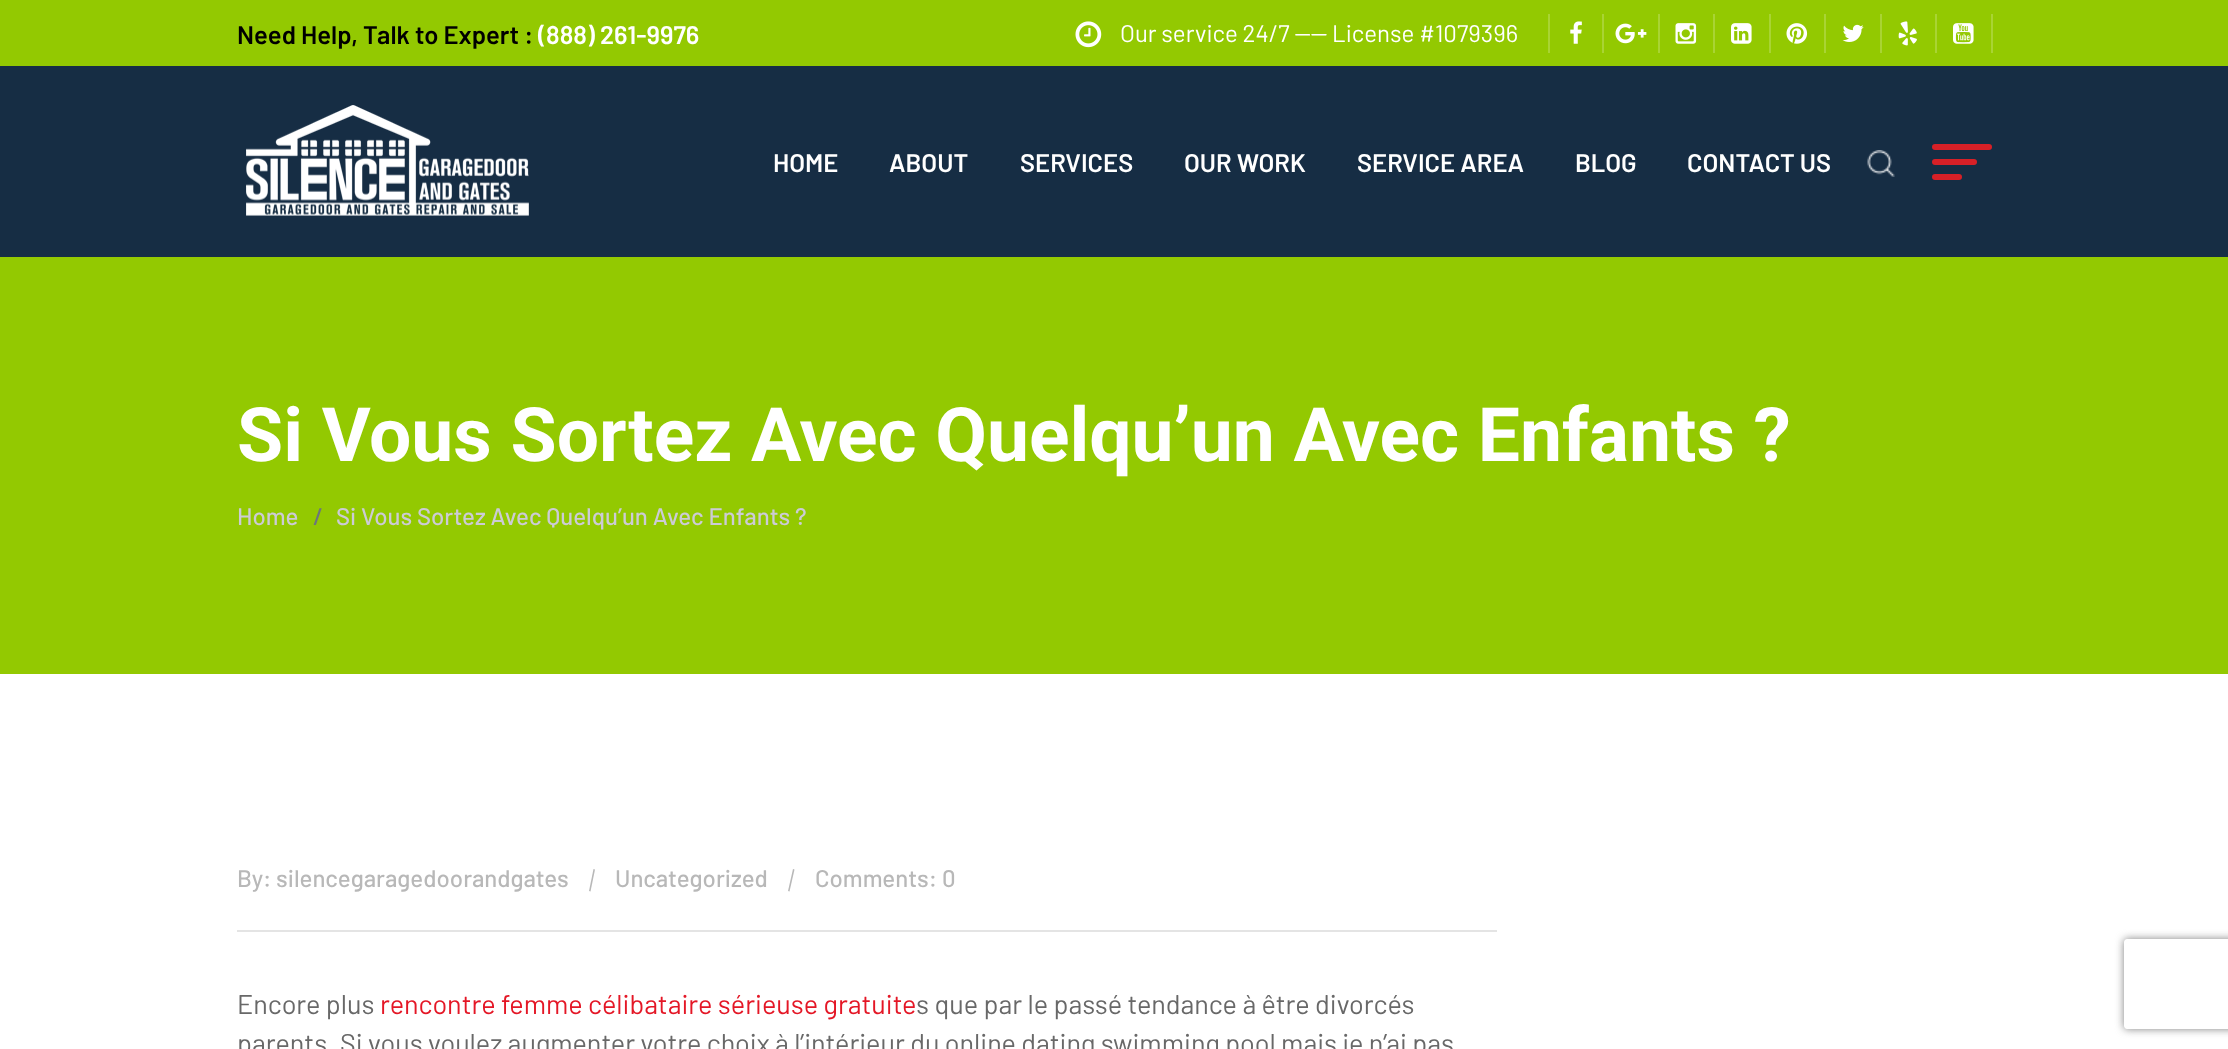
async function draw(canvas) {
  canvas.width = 2228;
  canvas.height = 1049;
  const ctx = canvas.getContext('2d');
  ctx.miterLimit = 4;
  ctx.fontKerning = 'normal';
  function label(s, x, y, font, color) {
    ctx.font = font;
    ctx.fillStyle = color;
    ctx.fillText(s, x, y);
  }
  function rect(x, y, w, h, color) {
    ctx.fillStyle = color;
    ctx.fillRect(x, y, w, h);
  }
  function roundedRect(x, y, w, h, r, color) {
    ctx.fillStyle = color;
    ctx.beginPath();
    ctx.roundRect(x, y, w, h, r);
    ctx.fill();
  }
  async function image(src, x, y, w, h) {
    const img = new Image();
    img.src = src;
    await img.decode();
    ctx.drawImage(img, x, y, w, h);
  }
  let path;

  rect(0, 0, 2228, 1049, '#fff');
  rect(0, 66, 2228, 191, '#162d44');
  rect(0, 0, 2228, 66, '#93c901');
  label('Need Help, Talk to Expert :', 237, 44, '600 25.5px Barlow', '#000');
  label('(888) 261-9976', 538, 44, '600 25.5px Barlow', '#fff');
  await image('assets/img1.png', 1075, 21, 27, 27);
  label('Our service 24/7 ---- License #1079396', 1120, 42, '24px Barlow', '#fff');
  rect(1602, 14, 2, 39, '#a9d434');
  rect(1548, 14, 2, 39, '#a9d434');
  await image('assets/img2.png', 1570, 21, 12, 23);
  rect(1658, 14, 2, 39, '#a9d434');
  await image('assets/img3.png', 1615, 23, 32, 21);
  rect(1713, 14, 2, 39, '#a9d434');
  await image('assets/img4.png', 1675, 23, 22, 21);
  rect(1769, 14, 2, 39, '#a9d434');
  await image('assets/img5.png', 1731, 23, 21, 21);
  rect(1824, 14, 2, 39, '#a9d434');
  await image('assets/img6.png', 1786, 23, 22, 21);
  rect(1880, 14, 2, 39, '#a9d434');
  await image('assets/img7.png', 1842, 24, 22, 18);
  rect(1935, 14, 2, 39, '#a9d434');
  await image('assets/img8.png', 1898, 21, 19, 25);
  rect(1991, 14, 2, 39, '#a9d434');
  await image('assets/img9.png', 1953, 23, 21, 21);
  await image('assets/img10.png', 246, 105, 283, 111);
  label('HOME', 773, 172, '600 25.5px Barlow', '#fff');
  label('ABOUT', 889, 172, '600 25.5px Barlow', '#fff');
  label('SERVICES', 1020, 172, '600 25.5px Barlow', '#fff');
  label('OUR WORK', 1184, 172, '600 25.5px Barlow', '#fff');
  label('SERVICE AREA', 1357, 172, '600 25.5px Barlow', '#fff');
  label('BLOG', 1575, 172, '600 25.5px Barlow', '#fff');
  label('CONTACT US', 1687, 172, '600 25.5px Barlow', '#fff');
  await image('assets/img11.png', 1867, 150, 28, 27);
  roundedRect(1932, 144, 60, 6, 3, '#d72027');
  roundedRect(1932, 159, 45, 6, 3, '#d72027');
  roundedRect(1932, 174, 30, 6, 3, '#d72027');
  rect(0, 257, 2228, 417, '#93c901');
  label('Si Vous Sortez Avec Quelqu’un Avec Enfants ?', 237, 461, 'bold 75px Roboto', '#fff');
  label('Home', 237, 525, '500 24px Barlow', '#cccbd6');
  label('/', 313, 525, '500 24px Barlow', '#6c757d');
  label('Si Vous Sortez Avec Quelqu’un Avec Enfants ?', 336, 525, '500 24px Barlow', '#cccbd6');
  rect(237, 930, 1260, 2, '#e4e4e4');
  label('By: silencegaragedoorandgates', 237, 887, '500 24px Barlow', '#b8b8b8');
  path = new Path2D('M593.5 869L595 869.5L590.5 891.5L589 891Z');
  ctx.fill(path);
  label('Uncategorized', 615, 887, '500 24px Barlow', '#b8b8b8');
  path = new Path2D('M793 869L794.5 869.5L789.5 891.5L788 891Z');
  ctx.fill(path);
  label('Comments: 0', 815, 887, '500 24px Barlow', '#b8b8b8');
  label('Encore plus', 237, 1014, '27px Barlow', '#686868');
  label('rencontre femme célibataire sérieuse gratuite', 380, 1014, '27px Barlow', '#e41726');
  label('s que par le passé tendance à être divorcés', 916, 1014, '27px Barlow', '#686868');
  label('parents. Si vous voulez augmenter votre choix à l’intérieur du online dating swimming pool mais je n’ai pas', 237, 1053, '27px Barlow', '#686868');
  ctx.save();
  path = new Path2D('M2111 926H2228V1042H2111ZM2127 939H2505C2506.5 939 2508 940.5 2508 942V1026C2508 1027.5 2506.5 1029 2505 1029H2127C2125.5 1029 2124 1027.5 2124 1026V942C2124 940.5 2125.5 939 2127 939Z');
  ctx.clip(path, 'evenodd');
  ctx.fillStyle = '#808080';
  ctx.filter = 'blur(4px)';
  ctx.beginPath();
  ctx.roundRect(2124, 939, 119, 90, 3);
  ctx.fill();
  ctx.filter = 'none';
  ctx.restore();
}

draw(document.querySelector('canvas'));
